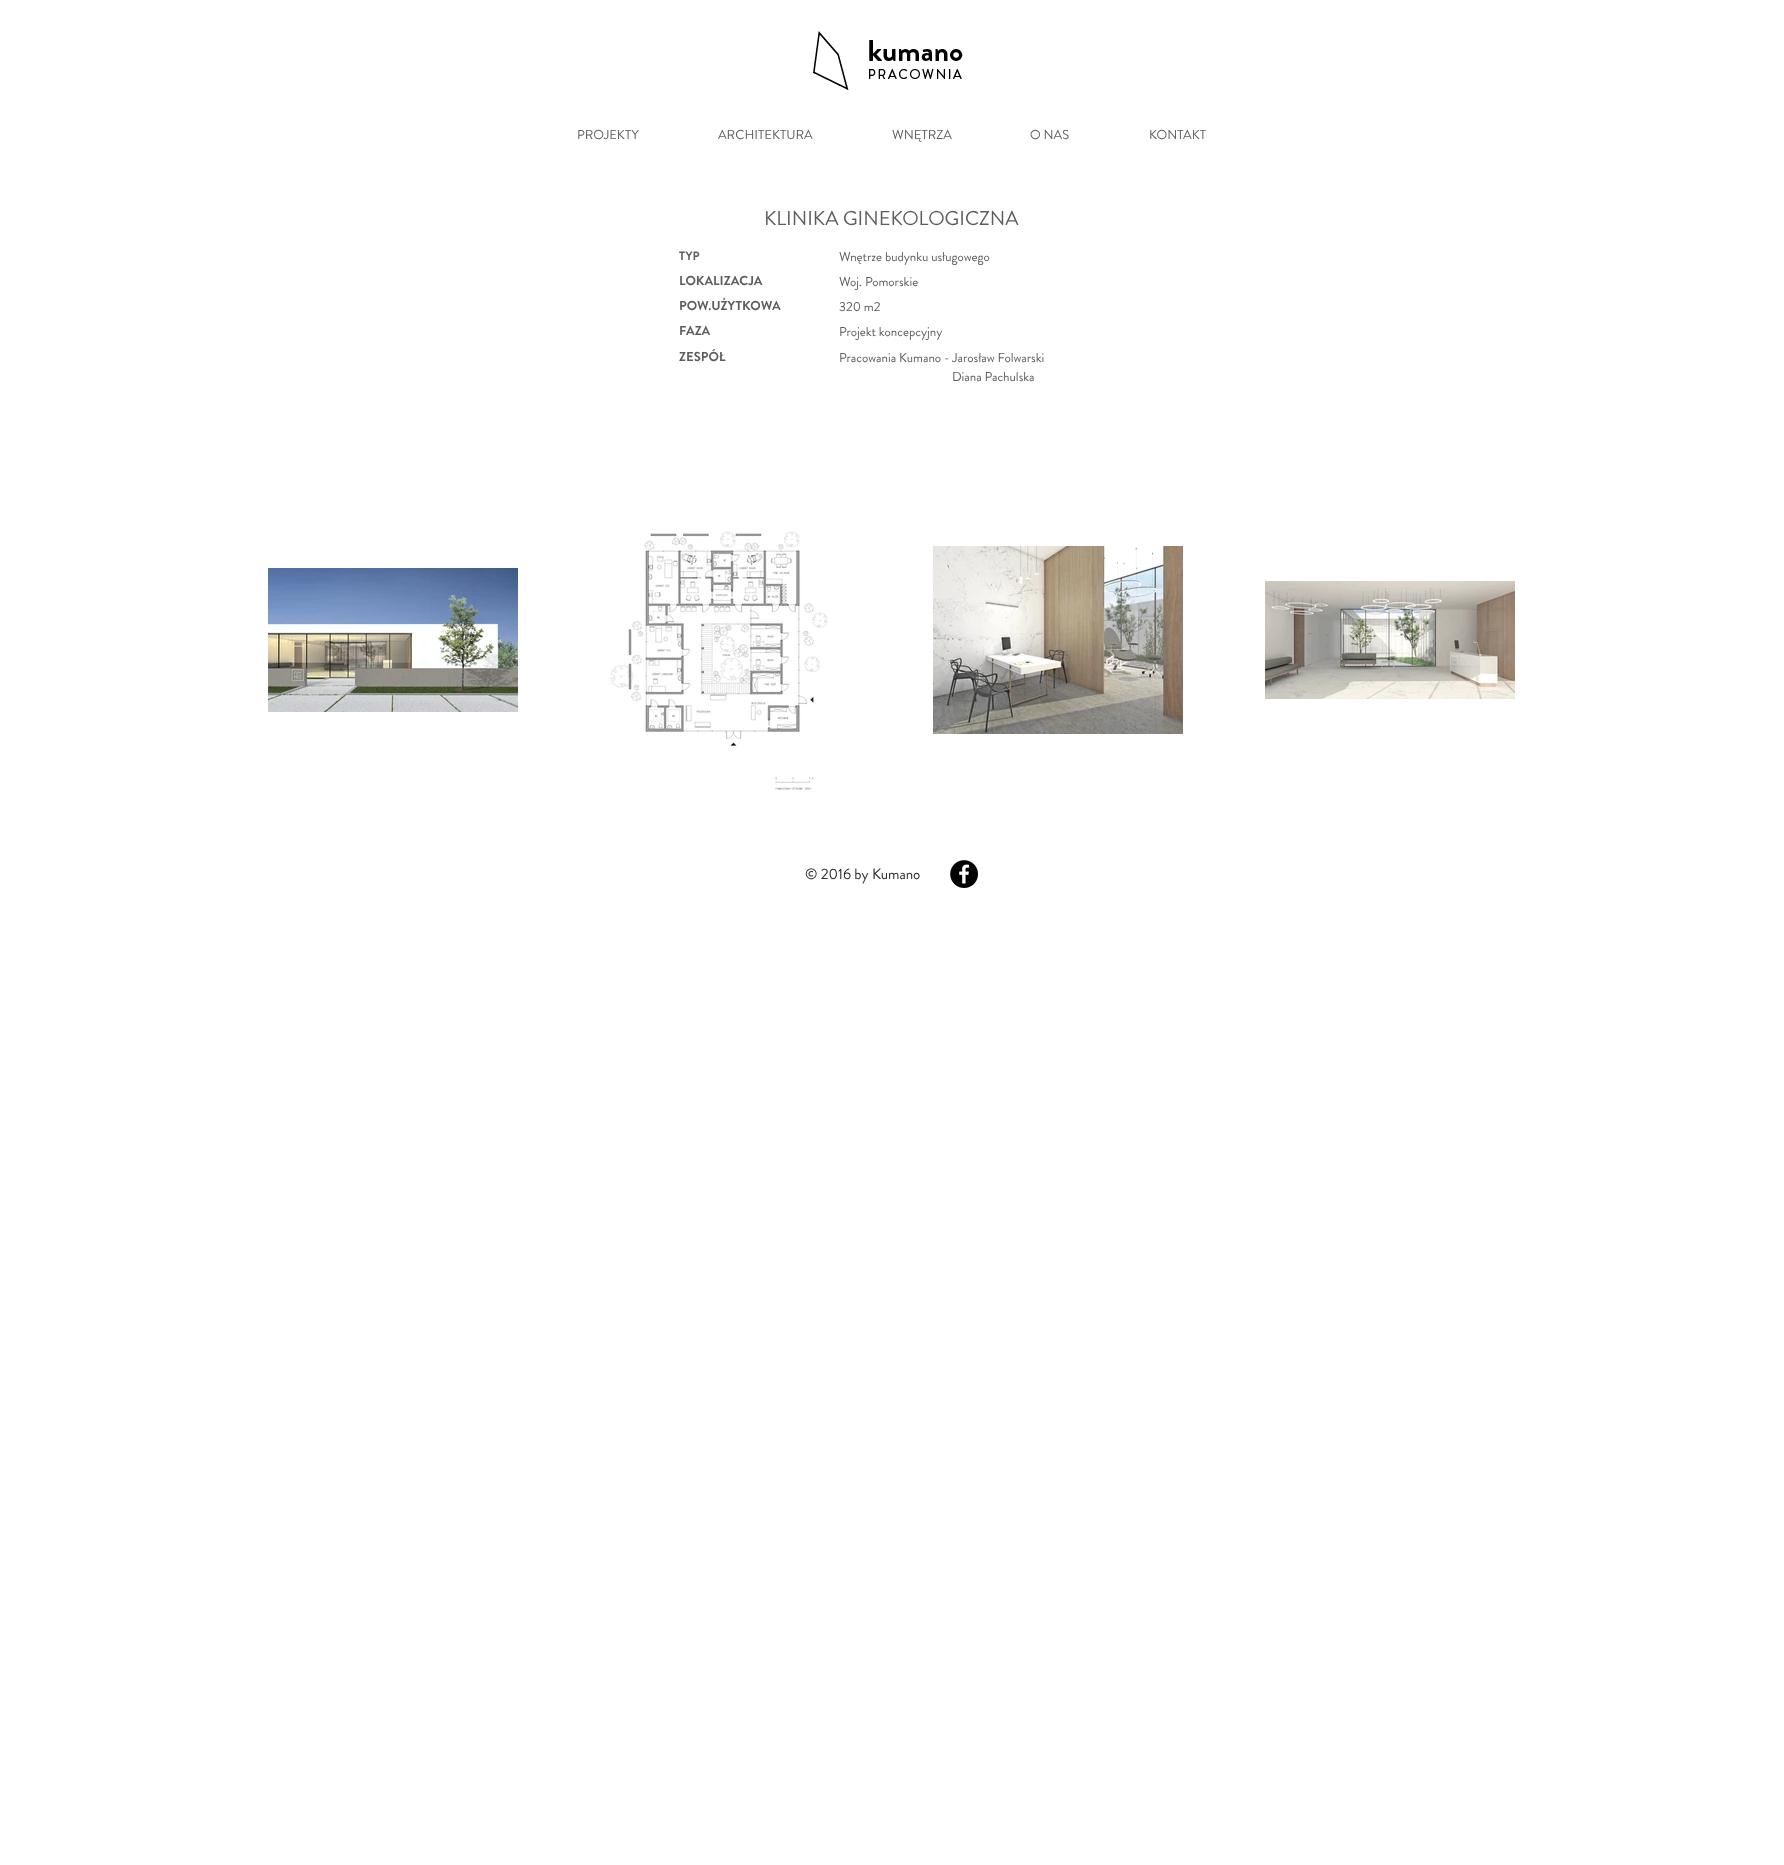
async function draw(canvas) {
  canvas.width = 1784;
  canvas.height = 1865;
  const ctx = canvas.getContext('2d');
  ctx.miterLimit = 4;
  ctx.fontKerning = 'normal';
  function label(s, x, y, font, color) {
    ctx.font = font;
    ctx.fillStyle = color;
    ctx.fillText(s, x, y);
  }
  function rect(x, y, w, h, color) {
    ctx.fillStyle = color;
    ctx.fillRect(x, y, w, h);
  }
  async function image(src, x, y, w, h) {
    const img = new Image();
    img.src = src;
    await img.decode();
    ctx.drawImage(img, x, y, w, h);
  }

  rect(0, 0, 1784, 1865, '#fff');
  await image('assets/img1.png', 813, 31, 150, 59);
  label('PROJEKTY', 577, 139, '13px Brandon Grotesque', '#5e5d5d');
  label('ARCHITEKTURA', 718, 139, '13px Brandon Grotesque', '#5e5d5d');
  label('WNĘTRZA', 892, 139, '13px Brandon Grotesque', '#5e5d5d');
  label('O NAS', 1030, 139, '13px Brandon Grotesque', '#5e5d5d');
  label('KONTAKT', 1149, 139, '13px Brandon Grotesque', '#5e5d5d');
  label('KLINIKA GINEKOLOGICZNA', 764, 225, '20px Brandon Grotesque', '#5e5d5d');
  label('TYP', 679, 260, 'bold 12px Brandon Grotesque', '#5e5d5d');
  label('Wnętrze budynku usługowego', 839, 261, '13px Brandon Grotesque', '#5e5d5d');
  label('LOKALIZACJA', 679, 285, 'bold 13px Brandon Grotesque', '#5e5d5d');
  label('Woj. Pomorskie', 839, 286, '13px Brandon Grotesque', '#5e5d5d');
  label('POW.UŻYTKOWA', 679, 310, 'bold 13px Brandon Grotesque', '#5e5d5d');
  label('320 m2', 839, 311, '13px Brandon Grotesque', '#5e5d5d');
  label('FAZA', 679, 335, 'bold 13px Brandon Grotesque', '#5e5d5d');
  label('Projekt koncepcyjny', 839, 336, '13px Brandon Grotesque', '#5e5d5d');
  label('ZESPÓŁ', 679, 361, 'bold 13px Brandon Grotesque', '#5e5d5d');
  label('Pracowania Kumano - Jarosław Folwarski', 839, 362, '13px Brandon Grotesque', '#5e5d5d');
  label('Diana Pachulska', 952, 381, '13px Brandon Grotesque', '#5e5d5d');
  await image('assets/img2.png', 268, 568, 250, 144);
  await image('assets/img3.png', 610, 531, 218, 261);
  await image('assets/img4.png', 933, 546, 250, 188);
  await image('assets/img5.png', 1265, 581, 250, 118);
  label('© 2016 by Kumano', 805, 879, '15px Brandon Grotesque', '#2c2c2b');
  await image('assets/img6.png', 950, 860, 28, 28);
}

draw(document.querySelector('canvas'));
